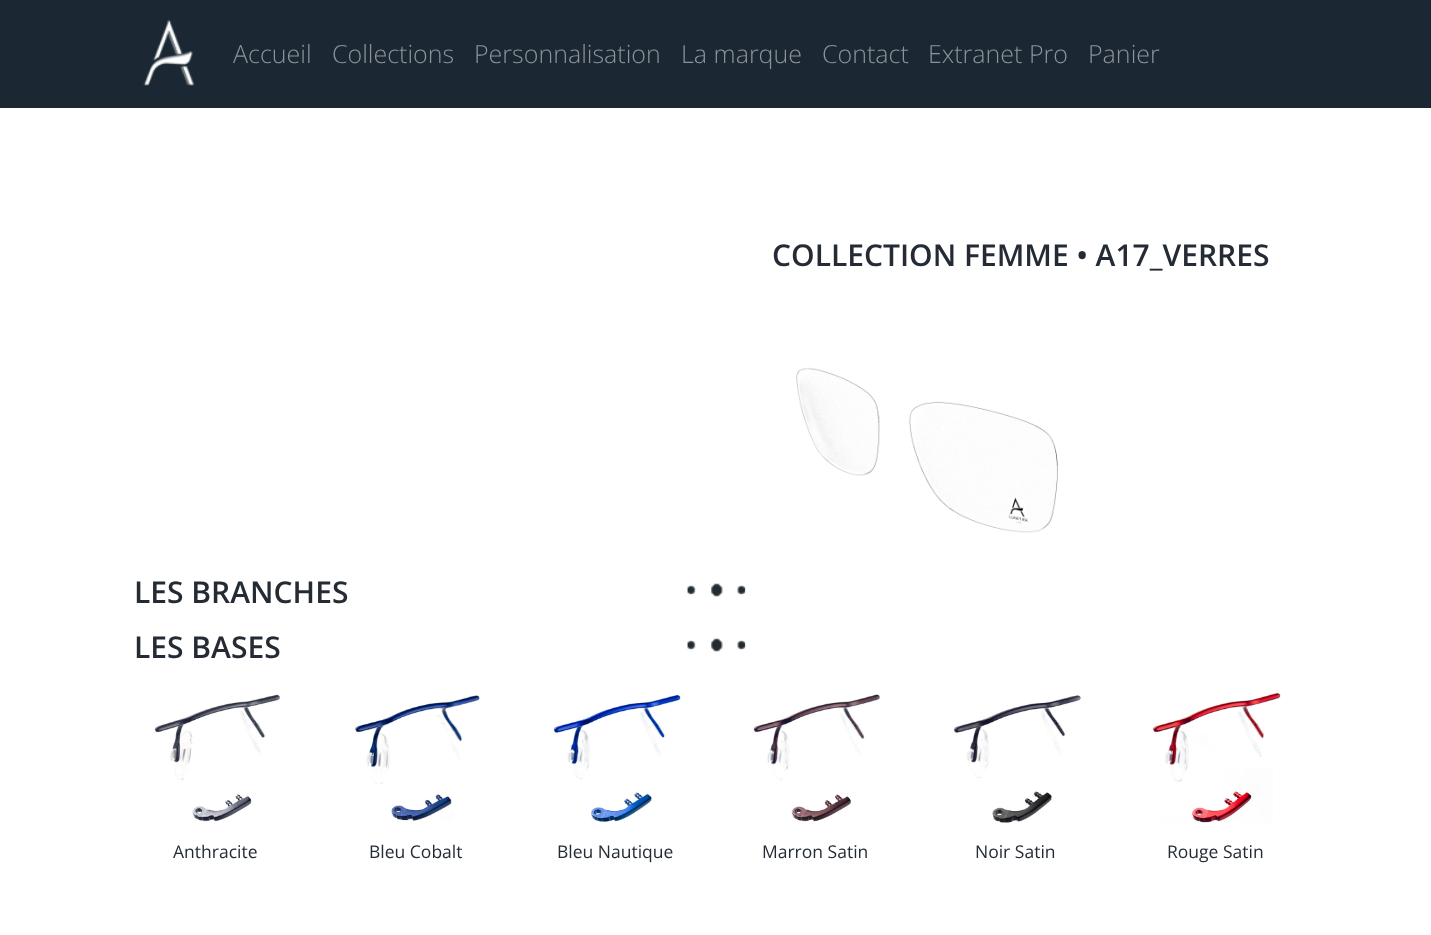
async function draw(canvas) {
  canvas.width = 1431;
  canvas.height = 935;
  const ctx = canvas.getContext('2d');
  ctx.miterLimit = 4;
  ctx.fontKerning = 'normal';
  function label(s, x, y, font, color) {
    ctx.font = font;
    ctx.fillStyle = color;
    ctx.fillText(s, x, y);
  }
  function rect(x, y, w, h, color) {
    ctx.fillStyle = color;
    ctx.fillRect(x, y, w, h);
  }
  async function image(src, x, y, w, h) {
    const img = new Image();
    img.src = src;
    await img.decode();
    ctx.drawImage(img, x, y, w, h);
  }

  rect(0, 0, 1431, 935, '#fff');
  rect(0, 0, 1431, 108, '#1b2733');
  await image('assets/img1.png', 143, 20, 51, 66);
  label('Accueil', 233, 63, '300 25px Open Sans', '#8d9399');
  label('Collections', 332, 63, '300 25px Open Sans', '#8d9399');
  label('Personnalisation', 474, 63, '300 25px Open Sans', '#8d9399');
  label('La marque', 681, 63, '300 25px Open Sans', '#8d9399');
  label('Contact', 822, 63, '300 25px Open Sans', '#8d9399');
  label('Extranet Pro', 928, 63, '300 25px Open Sans', '#8d9399');
  label('Panier', 1088, 63, '300 25px Open Sans', '#8d9399');
  label('COLLECTION FEMME • A17_VERRES', 772, 266, '600 30px Open Sans', '#242b35');
  await image('assets/img2.png', 796, 367, 262, 166);
  label('LES BRANCHES', 134, 603, '600 30px Open Sans', '#242b35');
  await image('assets/img3.png', 687, 583, 59, 14);
  label('LES BASES', 134, 658, '600 30px Open Sans', '#242b35');
  await image('assets/img4.png', 687, 638, 59, 14);
  await image('assets/img5.png', 154, 694, 126, 128);
  label('Anthracite', 173, 858, '17.5px Open Sans', '#242b35');
  await image('assets/img6.png', 355, 695, 125, 126);
  label('Bleu Cobalt', 369, 858, '17.5px Open Sans', '#242b35');
  await image('assets/img7.png', 553, 694, 128, 128);
  label('Bleu Nautique', 557, 858, '17.5px Open Sans', '#242b35');
  await image('assets/img8.png', 753, 694, 127, 128);
  label('Marron Satin', 762, 858, '17.5px Open Sans', '#242b35');
  await image('assets/img9.png', 954, 695, 127, 128);
  label('Noir Satin', 975, 858, '17.5px Open Sans', '#242b35');
  await image('assets/img10.png', 1152, 692, 129, 131);
  label('Rouge Satin', 1167, 858, '17.5px Open Sans', '#242b35');
}

draw(document.querySelector('canvas'));
